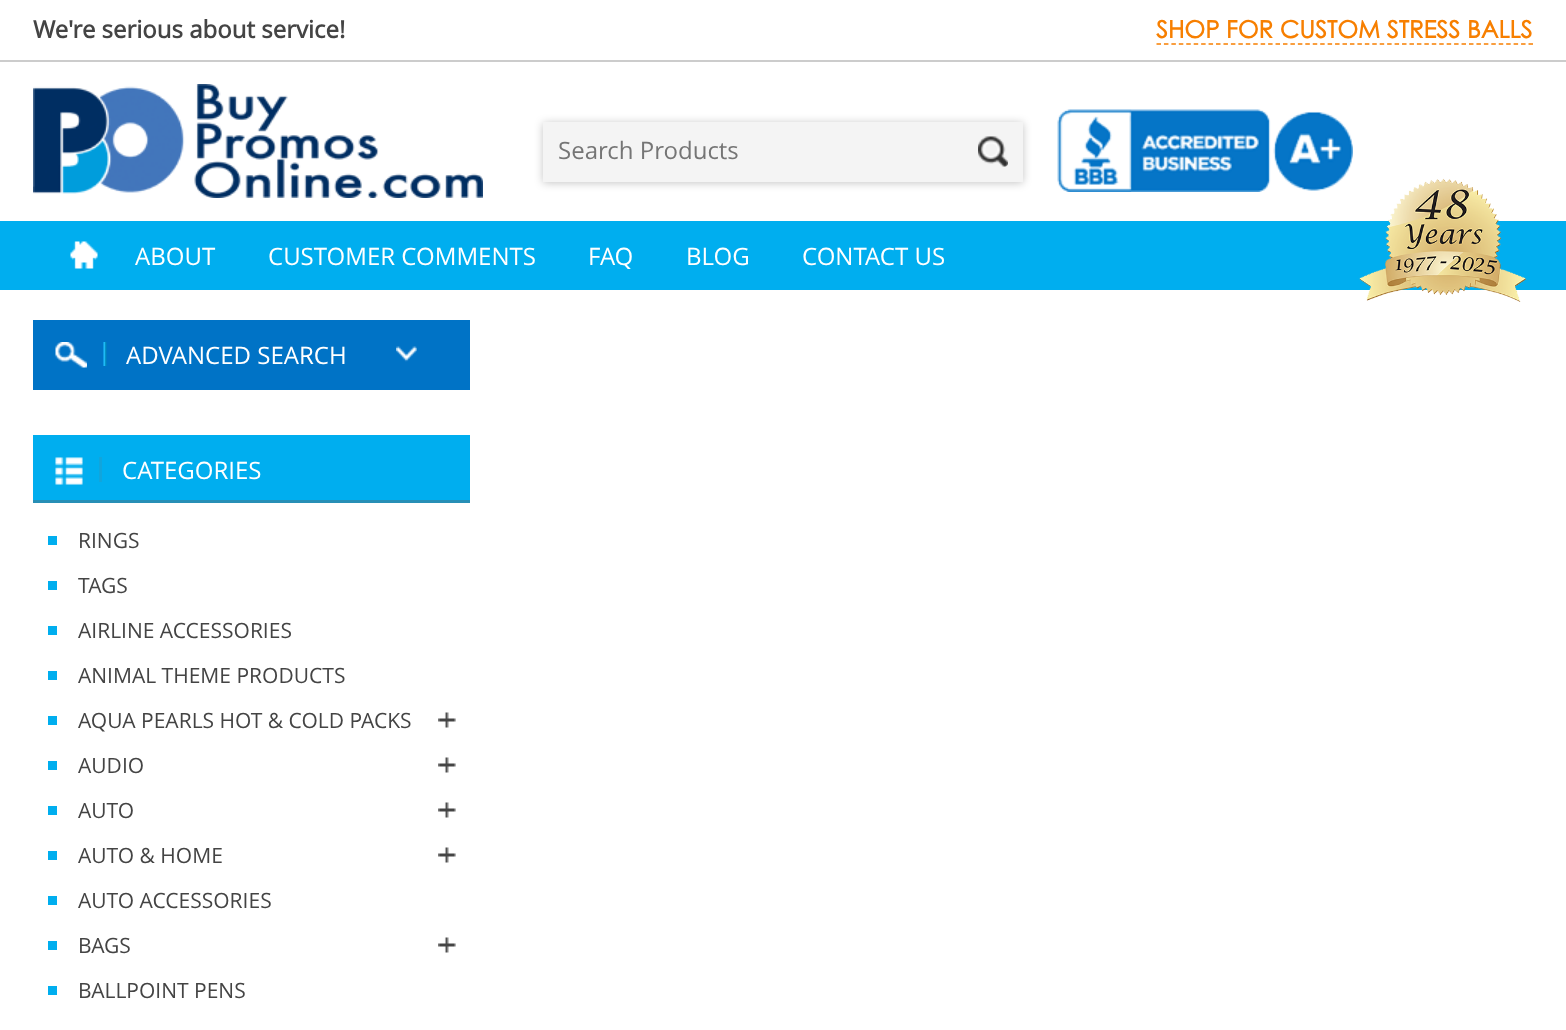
async function draw(canvas) {
  canvas.width = 1566;
  canvas.height = 1030;
  const ctx = canvas.getContext('2d');
  ctx.miterLimit = 4;
  ctx.fontKerning = 'normal';
  function label(s, x, y, font, color) {
    ctx.font = font;
    ctx.fillStyle = color;
    ctx.fillText(s, x, y);
  }
  function rect(x, y, w, h, color) {
    ctx.fillStyle = color;
    ctx.fillRect(x, y, w, h);
  }
  async function image(src, x, y, w, h) {
    const img = new Image();
    img.src = src;
    await img.decode();
    ctx.drawImage(img, x, y, w, h);
  }
  let path;

  rect(0, 0, 1566, 1030, '#fff');
  rect(0, 60, 1566, 2, '#ccc');
  label('We\'re serious about service!', 33, 38, 'bold 24px Open Sans', '#444');
  path = new Path2D('M1156.5 44H1533');
  ctx.strokeStyle = '#f77f00';
  ctx.lineWidth = 1.5;
  ctx.setLineDash([4.5, 2.94]);
  ctx.stroke(path);
  label('SHOP FOR CUSTOM STRESS BALLS', 1156, 38, 'bold 24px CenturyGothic', '#f77f00');
  await image('assets/img1.png', 33, 84, 450, 114);
  ctx.fillStyle = '#0000003b';
  ctx.filter = 'blur(4px)';
  ctx.beginPath();
  ctx.rect(543, 123, 480, 60);
  ctx.fill();
  ctx.filter = 'none';
  rect(543, 122, 480, 60, '#f4f4f4');
  label('Search Products', 558, 159, '24px Open Sans', '#757575');
  await image('assets/img2.png', 978, 136, 30, 31);
  await image('assets/img3.png', 1057, 109, 296, 83);
  rect(0, 221, 1566, 69, '#00aeef');
  await image('assets/img4.png', 1359, 178, 168, 124);
  await image('assets/img5.png', 70, 241, 28, 28);
  label('ABOUT', 135, 265, '24px Open Sans', '#fff');
  label('CUSTOMER COMMENTS', 268, 265, '24px Open Sans', '#fff');
  label('FAQ', 588, 265, '24px Open Sans', '#fff');
  label('BLOG', 686, 265, '24px Open Sans', '#fff');
  label('CONTACT US', 802, 265, '24px Open Sans', '#fff');
  rect(33, 320, 437, 70, '#0073c6');
  await image('assets/img6.png', 55, 342, 32, 26);
  await image('assets/img7.png', 103, 342, 314, 24);
  label('ADVANCED SEARCH', 126, 364, '24px Open Sans', '#fff');
  rect(33, 435, 437, 65, '#00aeef');
  rect(33, 500, 437, 3, '#278fb6');
  await image('assets/img8.png', 55, 457, 28, 28);
  rect(99, 457, 3, 25, '#11a5dc');
  label('CATEGORIES', 122, 479, '24px Open Sans', '#fff');
  rect(48, 536, 9, 9, '#00aeef');
  label('RINGS', 78, 548, '21px Open Sans', '#444');
  rect(48, 581, 9, 9, '#00aeef');
  label('TAGS', 78, 593, '21px Open Sans', '#444');
  rect(48, 626, 9, 9, '#00aeef');
  label('AIRLINE ACCESSORIES', 78, 638, '21px Open Sans', '#444');
  rect(48, 671, 9, 9, '#00aeef');
  label('ANIMAL THEME PRODUCTS', 78, 683, '21px Open Sans', '#444');
  rect(48, 716, 9, 9, '#00aeef');
  label('AQUA PEARLS HOT & COLD PACKS', 78, 728, '21px Open Sans', '#444');
  await image('assets/img9.png', 438, 712, 18, 16);
  rect(48, 761, 9, 9, '#00aeef');
  label('AUDIO', 78, 773, '21px Open Sans', '#444');
  await image('assets/img9.png', 438, 757, 18, 16);
  rect(48, 806, 9, 9, '#00aeef');
  label('AUTO', 78, 818, '21px Open Sans', '#444');
  await image('assets/img9.png', 438, 802, 18, 16);
  rect(48, 851, 9, 9, '#00aeef');
  label('AUTO & HOME', 78, 863, '21px Open Sans', '#444');
  await image('assets/img9.png', 438, 847, 18, 16);
  rect(48, 896, 9, 9, '#00aeef');
  label('AUTO ACCESSORIES', 78, 908, '21px Open Sans', '#444');
  rect(48, 941, 9, 9, '#00aeef');
  label('BAGS', 78, 953, '21px Open Sans', '#444');
  await image('assets/img9.png', 438, 937, 18, 16);
  rect(48, 986, 9, 9, '#00aeef');
  label('BALLPOINT PENS', 78, 998, '21px Open Sans', '#444');
}

draw(document.querySelector('canvas'));
